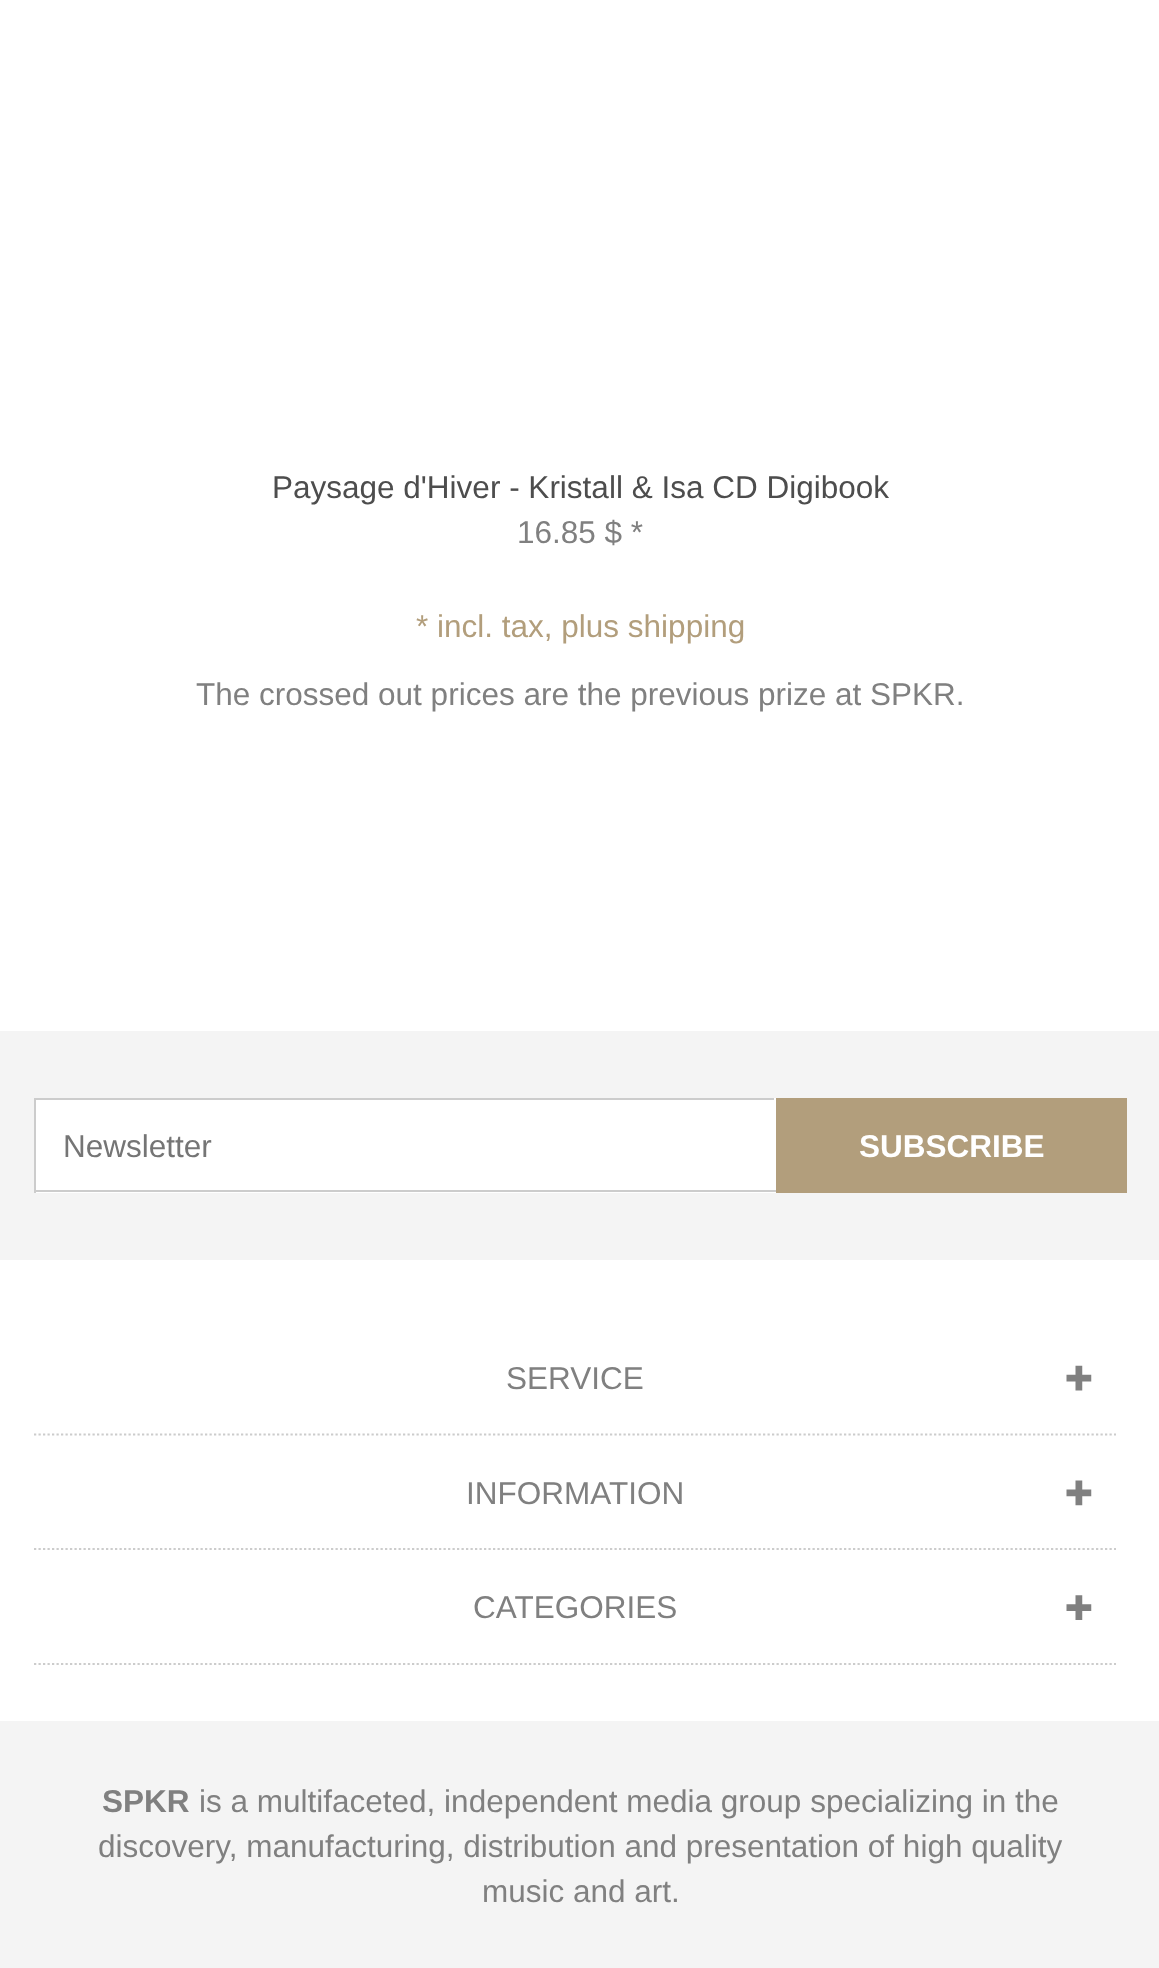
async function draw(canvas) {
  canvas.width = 1159;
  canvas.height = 1968;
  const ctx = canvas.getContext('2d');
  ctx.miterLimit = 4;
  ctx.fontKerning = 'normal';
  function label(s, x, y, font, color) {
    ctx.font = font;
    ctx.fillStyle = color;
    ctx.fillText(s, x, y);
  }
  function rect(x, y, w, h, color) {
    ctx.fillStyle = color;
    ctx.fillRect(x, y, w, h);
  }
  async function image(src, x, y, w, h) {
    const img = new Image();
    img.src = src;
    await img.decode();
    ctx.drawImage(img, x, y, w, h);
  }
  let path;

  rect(0, 0, 1159, 1968, '#fff');
  label('Paysage d\'Hiver - Kristall & Isa CD Digibook', 272, 498, '31.5px Liberation Sans', '#4d4d4d');
  label('16.85 $ *', 517, 543, '31.5px Liberation Sans', '#808080');
  label('* incl. tax, plus shipping', 416, 637, '31.5px Liberation Sans', '#b29e7c');
  label('The crossed out prices are the previous prize at SPKR.', 196, 705, '31.5px Liberation Sans', '#808080');
  rect(0, 1031, 1159, 229, '#f4f4f4');
  rect(776, 1098, 351, 95, '#b29e7c');
  rect(36, 1100, 738, 93, '#fff');
  rect(34, 1098, 742, 2, '#ccc');
  rect(774, 1098, 2, 95, '#fff');
  rect(34, 1190, 742, 2, '#ccc');
  rect(34, 1098, 2, 95, '#ccc');
  label('Newsletter', 63, 1157, '31.5px Liberation Sans', '#757575');
  label('SUBSCRIBE', 859, 1157, 'bold 31.5px Liberation Sans', '#fff');
  path = new Path2D('M34 1434.5H1116');
  ctx.strokeStyle = '#ccc';
  ctx.lineWidth = 2.2;
  ctx.setLineDash([2.25, 2.25]);
  ctx.stroke(path);
  label('SERVICE', 506, 1389, '31.5px Liberation Sans', '#808080');
  await image('assets/img1.png', 1066, 1365, 26, 26);
  path = new Path2D('M34 1549H1116');
  ctx.stroke(path);
  label('INFORMATION', 466, 1504, '31.5px Liberation Sans', '#808080');
  await image('assets/img2.png', 1066, 1480, 26, 26);
  path = new Path2D('M34 1664H1116');
  ctx.stroke(path);
  label('CATEGORIES', 473, 1618, '31.5px Liberation Sans', '#808080');
  await image('assets/img3.png', 1066, 1595, 26, 25);
  rect(0, 1721, 1159, 247, '#f4f4f4');
  label('SPKR', 102, 1812, 'bold 31.5px Liberation Sans', '#808080');
  label('is a multifaceted, independent media group specializing in the', 199, 1812, '31.5px Liberation Sans', '#808080');
  label('discovery, manufacturing, distribution and presentation of high quality', 98, 1857, '31.5px Liberation Sans', '#808080');
  label('music and art.', 482, 1902, '31.5px Liberation Sans', '#808080');
}

draw(document.querySelector('canvas'));
